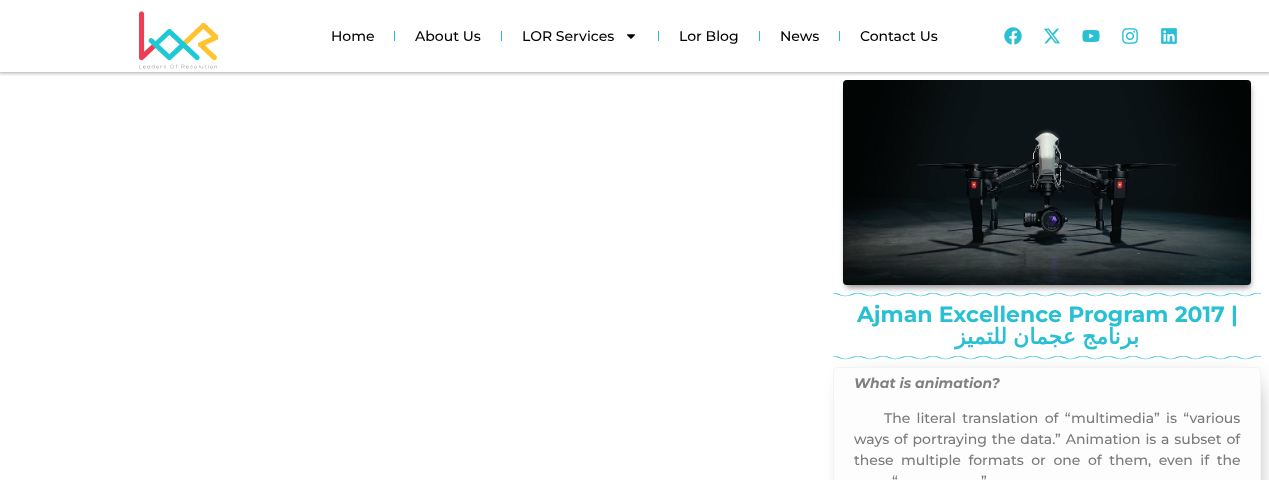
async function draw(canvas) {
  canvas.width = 1269;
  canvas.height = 480;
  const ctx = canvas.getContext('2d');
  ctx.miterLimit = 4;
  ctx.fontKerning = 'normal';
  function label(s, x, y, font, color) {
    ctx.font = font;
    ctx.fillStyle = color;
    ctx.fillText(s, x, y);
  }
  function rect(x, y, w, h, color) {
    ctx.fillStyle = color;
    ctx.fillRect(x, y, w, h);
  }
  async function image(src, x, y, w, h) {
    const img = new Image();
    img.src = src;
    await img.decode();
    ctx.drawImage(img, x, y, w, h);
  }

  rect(0, 0, 1269, 480, '#fff');
  ctx.fillStyle = '#00000080';
  ctx.filter = 'blur(3px)';
  ctx.beginPath();
  ctx.roundRect(846, 86, 404, 201, 2);
  ctx.fill();
  ctx.filter = 'none';
  await image('assets/img8.png', 843, 80, 408, 205);
  ctx.save();
  ctx.beginPath();
  ctx.rect(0, 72, 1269, 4);
  ctx.clip();
  ctx.filter = 'blur(2.5px)';
  ctx.beginPath();
  ctx.rect(-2, -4, 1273, 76);
  ctx.fill();
  ctx.filter = 'none';
  ctx.restore();
  await image('assets/img1.png', 139, 11, 79, 58);
  label('Home', 331, 41, '500 14px Montserrat', '#000');
  rect(394, 31, 1, 10, '#28c0d2');
  label('About Us', 415, 41, '500 14px Montserrat', '#000');
  rect(501, 31, 1, 10, '#28c0d2');
  label('LOR Services', 522, 41, '500 14px Montserrat', '#000');
  await image('assets/img2.png', 627, 34, 8, 5);
  rect(658, 31, 1, 10, '#28c0d2');
  label('Lor Blog', 679, 41, '500 14px Montserrat', '#000');
  rect(759, 31, 1, 10, '#28c0d2');
  label('News', 780, 41, '500 14px Montserrat', '#000');
  rect(839, 31, 1, 10, '#28c0d2');
  label('Contact Us', 860, 41, '500 14px Montserrat', '#000');
  await image('assets/img3.png', 1004, 27, 18, 18);
  await image('assets/img4.png', 1044, 28, 16, 16);
  await image('assets/img5.png', 1082, 30, 18, 12);
  await image('assets/img6.png', 1122, 28, 16, 16);
  await image('assets/img7.png', 1161, 28, 16, 16);
  await image('assets/img9.png', 833, 293, 428, 4);
  label('Ajman Excellence Program 2017 |', 857, 322, 'bold 22px Montserrat', '#28c0d2');
  ctx.wordSpacing = '-1px';
  ctx.direction = 'rtl';
  label('برنامج عجمان للتميز', 1139, 344, 'bold 22px DejaVu Sans', '#28c0d2');
  await image('assets/img10.png', 833, 356, 428, 4);
  ctx.fillStyle = '#00000080';
  ctx.filter = 'blur(12px)';
  ctx.beginPath();
  ctx.rect(851, 384, 402, 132);
  ctx.fill();
  ctx.filter = 'none';
  ctx.fillStyle = '#fdfdfd';
  ctx.beginPath();
  ctx.roundRect(833.5, 367.5, 427, 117, 3.5);
  ctx.fill();
  ctx.strokeStyle = '#f3f3f3';
  ctx.stroke();
  ctx.wordSpacing = '0px';
  ctx.direction = 'ltr';
  label('What is animation?', 854, 388, 'italic bold 14px Montserrat', '#808080');
  ctx.wordSpacing = '2.5px';
  label('The literal translation of “multimedia” is “various', 884, 423, '500 14px Montserrat', '#7a7a7a');
  ctx.wordSpacing = '1px';
  label('ways of portraying the data.” Animation is a subset of', 854, 444, '500 14px Montserrat', '#7a7a7a');
  ctx.wordSpacing = '3.75px';
  label('these multiple formats or one of them, even if the', 854, 465, '500 14px Montserrat', '#7a7a7a');
  ctx.wordSpacing = '0px';
  label('“', 892, 486, '500 14px Montserrat', '#7a7a7a');
  label('”', 981, 486, '500 14px Montserrat', '#7a7a7a');
}

draw(document.querySelector('canvas'));
